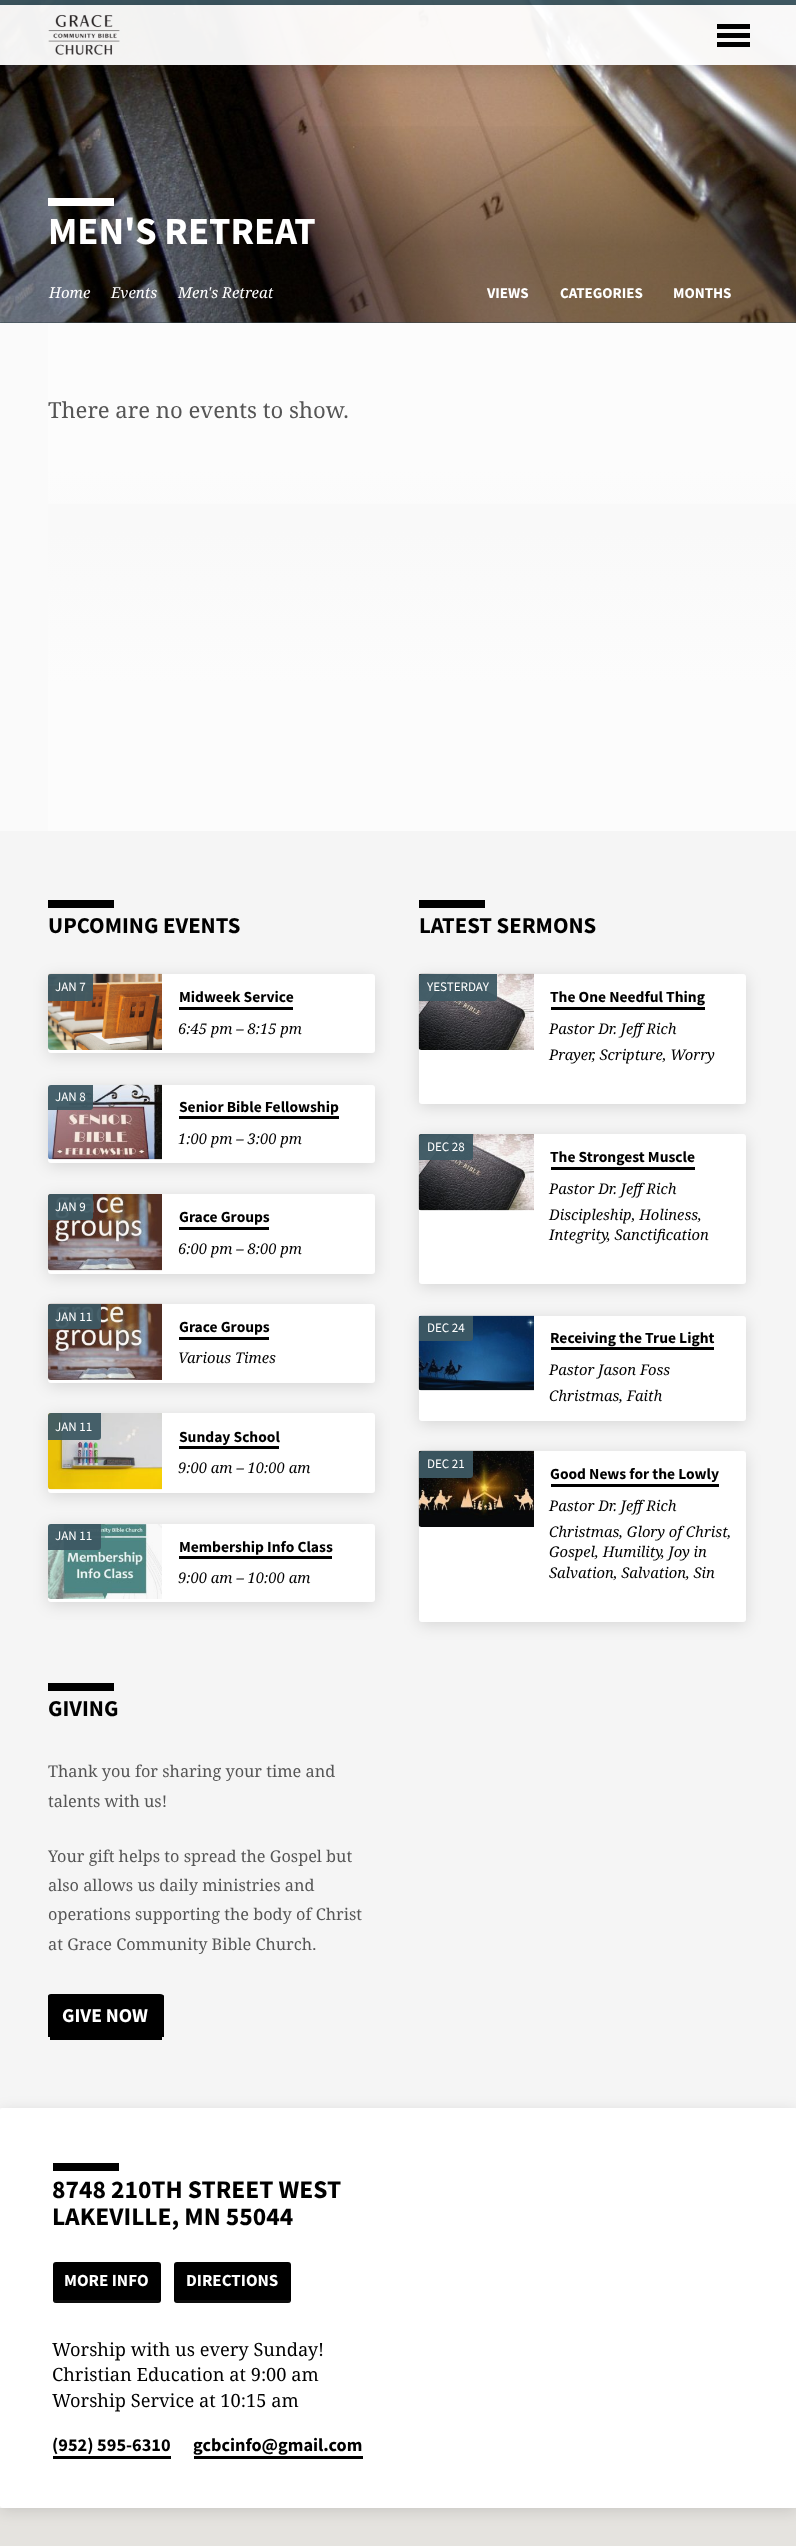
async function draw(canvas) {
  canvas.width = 796;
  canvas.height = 2546;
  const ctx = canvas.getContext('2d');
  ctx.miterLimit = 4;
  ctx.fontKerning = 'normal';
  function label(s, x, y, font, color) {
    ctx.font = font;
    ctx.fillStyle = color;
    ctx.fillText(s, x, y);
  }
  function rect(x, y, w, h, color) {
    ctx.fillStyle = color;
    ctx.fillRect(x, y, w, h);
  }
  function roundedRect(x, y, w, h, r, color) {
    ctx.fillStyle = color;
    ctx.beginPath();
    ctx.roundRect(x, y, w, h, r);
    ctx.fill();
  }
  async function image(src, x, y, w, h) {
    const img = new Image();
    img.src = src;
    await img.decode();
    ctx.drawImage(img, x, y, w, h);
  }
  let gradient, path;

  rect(0, 0, 796, 2546, '#fff');
  rect(0, 322, 796, 1, '#47606b');
  await image('assets/img2.png', 0, 0, 796, 323);
  rect(0, 0, 796, 5, '#3d5863f2');
  rect(0, 5, 796, 60, '#fffffff2');
  ctx.save();
  path = new Path2D('M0 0H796V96H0ZM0 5H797V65H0Z');
  ctx.clip(path, 'evenodd');
  ctx.fillStyle = '#00000024';
  ctx.filter = 'blur(9px)';
  ctx.beginPath();
  ctx.rect(0, 8, 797, 60);
  ctx.fill();
  ctx.filter = 'none';
  ctx.restore();
  await image('assets/img1.png', 48, 14, 72, 41);
  rect(717, 24, 33, 5, '#000');
  rect(717, 33, 33, 5, '#000');
  rect(717, 42, 33, 5, '#000');
  gradient = ctx.createLinearGradient(398, 0, 398, 323);
  gradient.addColorStop(0, '#00000000');
  gradient.addColorStop(0.36, '#00000000');
  gradient.addColorStop(0.76, '#0000004d');
  gradient.addColorStop(1, '#0000004d');
  ctx.fillStyle = gradient;
  ctx.fillRect(0, 126, 796, 197);
  rect(48, 198, 66, 8, '#fff');
  label('MEN\'S RETREAT', 48, 244, 'bold 38.5px Source Sans Pro', '#fff');
  label('Home', 49, 298, 'italic 15px Noto Serif', '#fff');
  label('Events', 111, 298, 'italic 15px Noto Serif', '#fff');
  label('Men\'s Retreat', 178, 298, 'italic 15px Noto Serif', '#fff');
  label('VIEWS', 487, 298, 'bold 15px Source Sans Pro', '#fff');
  label('CATEGORIES', 560, 298, 'bold 15px Source Sans Pro', '#fff');
  label('MONTHS', 673, 298, 'bold 15px Source Sans Pro', '#fff');
  rect(0, 323, 48, 508, '#fafafa');
  gradient = ctx.createLinearGradient(446, 831, 446, 323);
  gradient.addColorStop(0.29, '#fcfcfc');
  gradient.addColorStop(0.59, '#f9f9f9');
  ctx.fillStyle = gradient;
  ctx.fillRect(48, 471, 748, 360);
  gradient = ctx.createLinearGradient(446, 322, 446, 831);
  gradient.addColorStop(0.29, '#fcfcfc');
  gradient.addColorStop(0.59, '#fcfcfc00');
  ctx.fillStyle = gradient;
  ctx.fillRect(48, 323, 748, 181);
  label('There are no events to show.', 48, 418, '22.1px Noto Serif', '#555');
  rect(0, 831, 796, 1277, '#f5f5f5');
  rect(48, 900, 66, 8, '#000');
  label('UPCOMING EVENTS', 48, 933, 'bold 22.75px Source Sans Pro', '#000');
  ctx.fillStyle = '#0000001f';
  ctx.filter = 'blur(7.5px)';
  ctx.beginPath();
  ctx.roundRect(48, 977, 327, 79, 3);
  ctx.fill();
  ctx.filter = 'none';
  roundedRect(48, 974, 327, 79, 3, '#fff');
  await image('assets/img3.png', 48, 973, 114, 77);
  ctx.fillStyle = '#3d5863f2';
  ctx.beginPath();
  ctx.roundRect(48, 974, 45, 27, [3, 0, 3, 0]);
  ctx.fill();
  label('JAN 7', 55, 991, '13px Source Sans Pro', '#fff');
  label('Midweek Service', 179, 1002, 'bold 15.5px Source Sans Pro', '#000');
  rect(179, 1007, 114, 3, '#000');
  label('6:45 pm – 8:15 pm', 178, 1034, 'italic 14.75px Noto Serif', '#000');
  ctx.fillStyle = '#0000001f';
  ctx.filter = 'blur(7.5px)';
  ctx.beginPath();
  ctx.roundRect(48, 1088, 327, 78, 3);
  ctx.fill();
  ctx.filter = 'none';
  roundedRect(48, 1085, 327, 78, 3, '#fff');
  await image('assets/img4.png', 48, 1084, 114, 76);
  ctx.fillStyle = '#3d5863f2';
  ctx.beginPath();
  ctx.roundRect(48, 1085, 45, 25, [3, 0, 3, 0]);
  ctx.fill();
  label('JAN 8', 55, 1101, '13px Source Sans Pro', '#fff');
  label('Senior Bible Fellowship', 179, 1112, 'bold 15.5px Source Sans Pro', '#000');
  rect(179, 1116, 160, 3, '#000');
  label('1:00 pm – 3:00 pm', 178, 1144, 'italic 14.75px Noto Serif', '#000');
  ctx.fillStyle = '#0000001f';
  ctx.filter = 'blur(7.5px)';
  ctx.beginPath();
  ctx.roundRect(48, 1197, 327, 80, 3);
  ctx.fill();
  ctx.filter = 'none';
  roundedRect(48, 1194, 327, 80, 3, '#fff');
  await image('assets/img5.png', 48, 1194, 114, 77);
  ctx.fillStyle = '#3d5863f2';
  ctx.beginPath();
  ctx.roundRect(48, 1194, 45, 26, [3, 0, 3, 0]);
  ctx.fill();
  label('JAN 9', 55, 1211, '13px Source Sans Pro', '#fff');
  label('Grace Groups', 179, 1222, 'bold 15.5px Source Sans Pro', '#000');
  rect(179, 1227, 90, 3, '#000');
  label('6:00 pm – 8:00 pm', 178, 1254, 'italic 14.75px Noto Serif', '#000');
  ctx.fillStyle = '#0000001f';
  ctx.filter = 'blur(7.5px)';
  ctx.beginPath();
  ctx.roundRect(48, 1307, 327, 79, 3);
  ctx.fill();
  ctx.filter = 'none';
  roundedRect(48, 1304, 327, 79, 3, '#fff');
  await image('assets/img6.png', 48, 1303, 114, 77);
  ctx.fillStyle = '#3d5863f2';
  ctx.beginPath();
  ctx.roundRect(48, 1304, 53, 25, [3, 0, 3, 0]);
  ctx.fill();
  label('JAN 11', 55, 1321, '13px Source Sans Pro', '#fff');
  label('Grace Groups', 179, 1332, 'bold 15.5px Source Sans Pro', '#000');
  rect(179, 1337, 90, 3, '#000');
  label('Various Times', 178, 1363, 'italic 14.75px Noto Serif', '#000');
  ctx.fillStyle = '#0000001f';
  ctx.filter = 'blur(7.5px)';
  ctx.beginPath();
  ctx.roundRect(48, 1416, 327, 80, 3);
  ctx.fill();
  ctx.filter = 'none';
  roundedRect(48, 1413, 327, 80, 3, '#fff');
  await image('assets/img7.png', 48, 1413, 114, 77);
  ctx.fillStyle = '#3d5863f2';
  ctx.beginPath();
  ctx.roundRect(48, 1413, 53, 27, [3, 0, 3, 0]);
  ctx.fill();
  label('JAN 11', 55, 1431, '13px Source Sans Pro', '#fff');
  label('Sunday School', 179, 1442, 'bold 15.5px Source Sans Pro', '#000');
  rect(179, 1446, 100, 3, '#000');
  label('9:00 am – 10:00 am', 178, 1473, 'italic 14.75px Noto Serif', '#000');
  ctx.fillStyle = '#0000001f';
  ctx.filter = 'blur(7.5px)';
  ctx.beginPath();
  ctx.roundRect(48, 1527, 327, 78, 3);
  ctx.fill();
  ctx.filter = 'none';
  roundedRect(48, 1524, 327, 78, 3, '#fff');
  await image('assets/img8.png', 48, 1524, 114, 75);
  ctx.fillStyle = '#3d5863f2';
  ctx.beginPath();
  ctx.roundRect(48, 1524, 53, 26, [3, 0, 3, 0]);
  ctx.fill();
  label('JAN 11', 55, 1540, '13px Source Sans Pro', '#fff');
  label('Membership Info Class', 179, 1552, 'bold 15.5px Source Sans Pro', '#000');
  rect(179, 1556, 153, 3, '#000');
  label('9:00 am – 10:00 am', 178, 1583, 'italic 14.75px Noto Serif', '#000');
  rect(419, 900, 66, 8, '#000');
  label('LATEST SERMONS', 419, 933, 'bold 22.75px Source Sans Pro', '#000');
  ctx.fillStyle = '#0000001f';
  ctx.filter = 'blur(7.5px)';
  ctx.beginPath();
  ctx.roundRect(419, 977, 327, 130, 3);
  ctx.fill();
  ctx.filter = 'none';
  roundedRect(419, 974, 327, 130, 3, '#fff');
  await image('assets/img9.png', 418, 973, 116, 77);
  ctx.fillStyle = '#3d5863f2';
  ctx.beginPath();
  ctx.roundRect(419, 974, 78, 27, [3, 0, 3, 0]);
  ctx.fill();
  label('YESTERDAY', 427, 991, '13px Source Sans Pro', '#fff');
  label('The One Needful Thing', 550, 1002, 'bold 15.5px Source Sans Pro', '#000');
  rect(551, 1007, 154, 3, '#000');
  label('Pastor Dr. Jeff Rich', 549, 1034, 'italic 14.75px Noto Serif', '#000');
  label('Prayer', 549, 1060, 'italic 14.75px Noto Serif', '#000');
  label(', Scripture, Worry', 592, 1060, 'italic 14.75px Noto Serif', '#000');
  ctx.fillStyle = '#0000001f';
  ctx.filter = 'blur(7.5px)';
  ctx.beginPath();
  ctx.roundRect(419, 1137, 327, 150, 3);
  ctx.fill();
  ctx.filter = 'none';
  roundedRect(419, 1134, 327, 150, 3, '#fff');
  await image('assets/img10.png', 418, 1134, 116, 77);
  ctx.fillStyle = '#3d5863f2';
  ctx.beginPath();
  ctx.roundRect(419, 1134, 54, 26, [3, 0, 3, 0]);
  ctx.fill();
  label('DEC 28', 427, 1151, '13px Source Sans Pro', '#fff');
  label('The Strongest Muscle', 550, 1162, 'bold 15.5px Source Sans Pro', '#000');
  rect(551, 1167, 144, 3, '#000');
  label('Pastor Dr. Jeff Rich', 549, 1194, 'italic 14.75px Noto Serif', '#000');
  label('Discipleship, Holiness,', 549, 1220, 'italic 14.75px Noto Serif', '#000');
  label('Integrity', 549, 1240, 'italic 14.75px Noto Serif', '#000');
  label(', Sanctification', 607, 1240, 'italic 14.75px Noto Serif', '#000');
  ctx.fillStyle = '#0000001f';
  ctx.filter = 'blur(7.5px)';
  ctx.beginPath();
  ctx.roundRect(419, 1319, 327, 105, 3);
  ctx.fill();
  ctx.filter = 'none';
  roundedRect(419, 1316, 327, 105, 3, '#fff');
  await image('assets/img11.png', 418, 1315, 116, 76);
  ctx.fillStyle = '#3d5863f2';
  ctx.beginPath();
  ctx.roundRect(419, 1316, 54, 25, [3, 0, 3, 0]);
  ctx.fill();
  label('DEC 24', 427, 1332, '13px Source Sans Pro', '#fff');
  label('Receiving the True Light', 550, 1343, 'bold 15.5px Source Sans Pro', '#000');
  rect(551, 1347, 163, 3, '#000');
  label('Pastor Jason Foss', 549, 1375, 'italic 14.75px Noto Serif', '#000');
  label('Christmas, Faith', 549, 1401, 'italic 14.75px Noto Serif', '#000');
  ctx.fillStyle = '#0000001f';
  ctx.filter = 'blur(7.5px)';
  ctx.beginPath();
  ctx.roundRect(419, 1454, 327, 171, 3);
  ctx.fill();
  ctx.filter = 'none';
  roundedRect(419, 1451, 327, 171, 3, '#fff');
  await image('assets/img12.png', 418, 1450, 116, 77);
  ctx.fillStyle = '#3d5863f2';
  ctx.beginPath();
  ctx.roundRect(419, 1451, 54, 27, [3, 0, 3, 0]);
  ctx.fill();
  label('DEC 21', 427, 1468, '13px Source Sans Pro', '#fff');
  label('Good News for the Lowly', 550, 1479, 'bold 15.5px Source Sans Pro', '#000');
  rect(551, 1484, 168, 3, '#000');
  label('Pastor Dr. Jeff Rich', 549, 1511, 'italic 14.75px Noto Serif', '#000');
  label('Christmas, Glory of Christ,', 549, 1537, 'italic 14.75px Noto Serif', '#000');
  label('Gospel, Humility', 549, 1557, 'italic 14.75px Noto Serif', '#000');
  label(', Joy in', 661, 1557, 'italic 14.75px Noto Serif', '#000');
  label('Salvation, Salvation, Sin', 549, 1578, 'italic 14.75px Noto Serif', '#000');
  rect(48, 1683, 66, 8, '#000');
  label('GIVING', 48, 1716, 'bold 22.75px Source Sans Pro', '#000');
  label('Thank you for sharing your time and', 48, 1777, '16.3px Noto Serif', '#555');
  label('talents with us!', 48, 1807, '16.3px Noto Serif', '#555');
  label('Your gift helps to spread the Gospel but', 48, 1862, '16.3px Noto Serif', '#555');
  label('also allows us daily ministries and', 48, 1891, '16.3px Noto Serif', '#555');
  label('operations supporting the body of Christ', 48, 1920, '16.3px Noto Serif', '#555');
  label('at Grace Community Bible Church.', 48, 1950, '16.3px Noto Serif', '#555');
  ctx.fillStyle = '#000';
  path = new Path2D('M51 1994H160C162 1994 164 1995 164 1996V2037H48V1996C48 1995 49 1994 51 1994Z');
  ctx.fill(path);
  rect(50, 2037, 112, 3, '#000');
  label('GIVE NOW', 62, 2022, 'bold 19.5px Source Sans Pro', '#fff');
  rect(0, 2508, 796, 38, '#e5e3df');
  ctx.fillStyle = '#0000001f';
  ctx.filter = 'blur(7.5px)';
  ctx.beginPath();
  ctx.roundRect(0, 2111, 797, 400, 3);
  ctx.fill();
  ctx.filter = 'none';
  roundedRect(0, 2108, 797, 400, 3, '#fff');
  rect(53, 2163, 66, 8, '#000');
  label('8748 210TH STREET WEST', 52, 2198, 'bold 25.5px Source Sans Pro', '#000');
  label('LAKEVILLE, MN 55044', 52, 2225, 'bold 25.5px Source Sans Pro', '#000');
  roundedRect(53, 2262, 108, 41, 3, '#000');
  rect(54, 2300, 105, 3, '#32323240');
  label('MORE INFO', 64, 2286, 'bold 17px Source Sans Pro', '#fff');
  roundedRect(174, 2262, 117, 41, 3, '#000');
  rect(176, 2300, 114, 3, '#32323240');
  label('DIRECTIONS', 186, 2286, 'bold 17px Source Sans Pro', '#fff');
  label('Worship with us every Sunday!', 52, 2356, '18.25px Noto Serif', '#000');
  label('Christian Education at 9:00 am', 52, 2381, '18.25px Noto Serif', '#000');
  label('Worship Service at 10:15 am', 52, 2407, '18.25px Noto Serif', '#000');
  label('(952) 595-6310', 52, 2451, 'bold 18.25px Source Sans Pro', '#000');
  rect(53, 2456, 118, 3, '#000');
  label('gcbcinfo@gmail.com', 193, 2451, 'bold 18.25px Source Sans Pro', '#000');
  rect(194, 2456, 169, 3, '#000');
}

draw(document.querySelector('canvas'));
